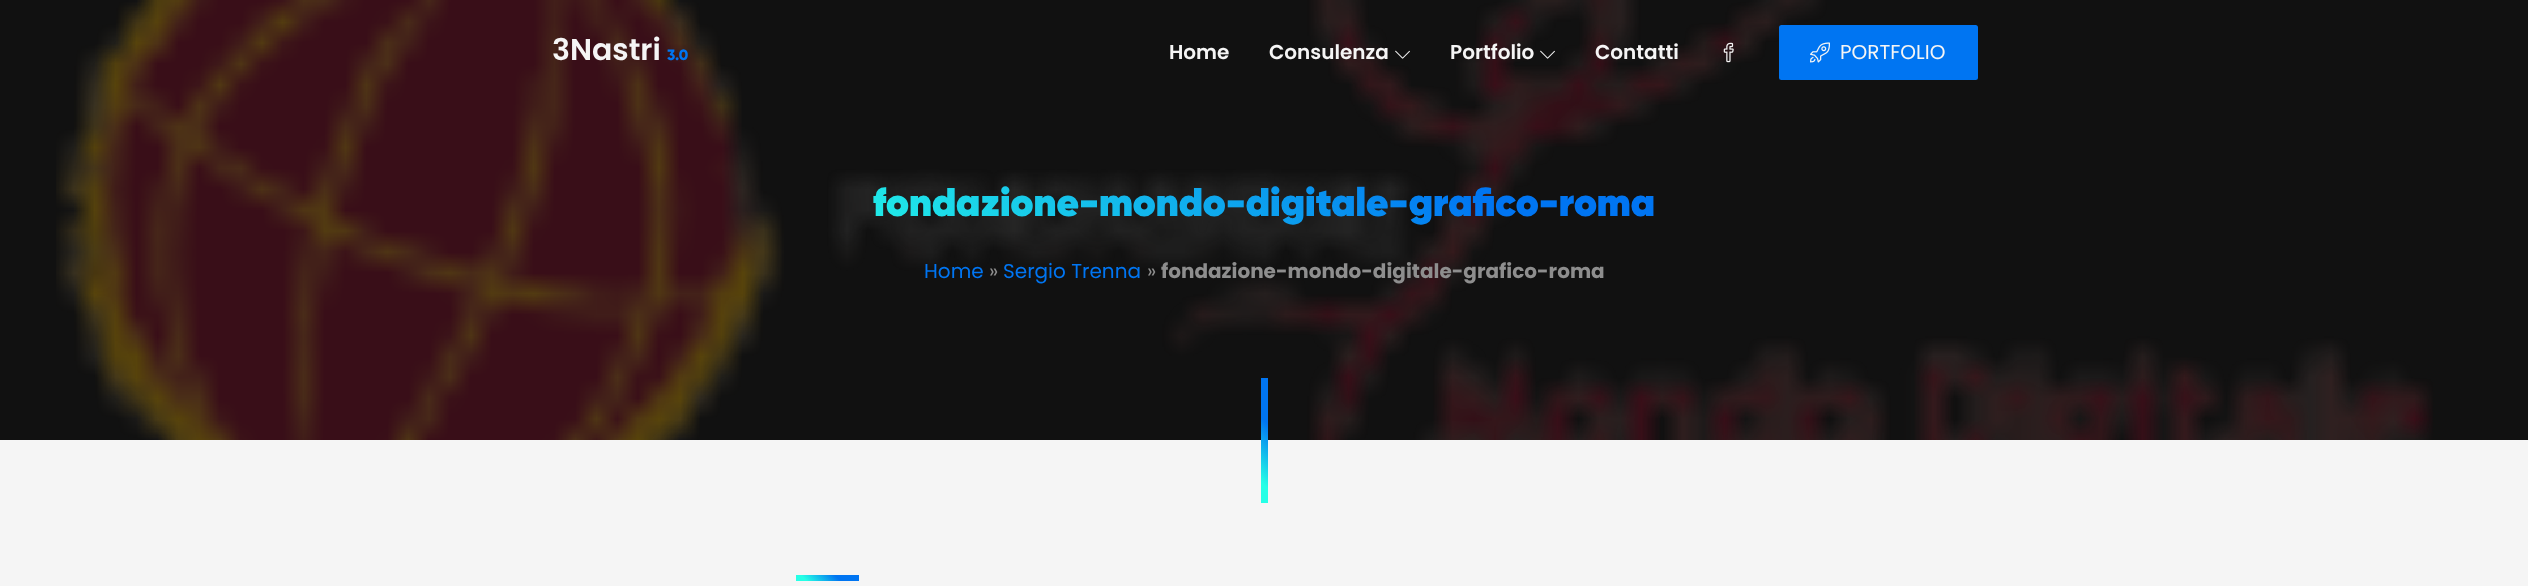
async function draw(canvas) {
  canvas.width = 2528;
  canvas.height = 586;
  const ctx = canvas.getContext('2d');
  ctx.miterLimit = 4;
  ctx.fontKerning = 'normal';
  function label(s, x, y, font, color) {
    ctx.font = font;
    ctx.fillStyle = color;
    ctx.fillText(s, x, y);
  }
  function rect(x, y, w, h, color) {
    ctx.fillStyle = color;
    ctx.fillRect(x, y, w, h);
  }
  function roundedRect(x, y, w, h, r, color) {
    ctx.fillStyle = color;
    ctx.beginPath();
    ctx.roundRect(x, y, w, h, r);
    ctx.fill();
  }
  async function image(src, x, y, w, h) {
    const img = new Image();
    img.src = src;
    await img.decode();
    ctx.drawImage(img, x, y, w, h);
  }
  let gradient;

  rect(0, 0, 2528, 586, '#f5f5f5');
  rect(0, 0, 2528, 440, '#111');
  await image('assets/img4.png', 56, 0, 2377, 440);
  label('3Nastri', 552, 60, '600 30px Poppins', '#f5f5f5');
  label('3.0', 667, 60, '800 15px Gilroy', '#0075f2');
  label('Home', 1169, 59, '600 20px Poppins', '#f5f5f5');
  label('Consulenza', 1269, 59, '600 20px Poppins', '#f5f5f5');
  await image('assets/img1.png', 1395, 50, 15, 9);
  label('Portfolio', 1450, 59, '600 20px Poppins', '#f5f5f5');
  await image('assets/img1.png', 1540, 50, 15, 9);
  label('Contatti', 1595, 59, '600 20px Poppins', '#f5f5f5');
  await image('assets/img2.png', 1723, 42, 11, 21);
  roundedRect(1779, 25, 199, 55, 2.5, '#0075f2');
  await image('assets/img3.png', 1810, 42, 20, 21);
  label('PORTFOLIO', 1840, 59, '20px Poppins', '#f5f5f5');
  ctx.font = '900 40px Gilroy';
  gradient = ctx.createLinearGradient(896, 571, 1633, -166);
  gradient.addColorStop(0.15, '#26ffe6');
  gradient.addColorStop(0.65, '#0075f2');
  ctx.fillStyle = gradient;
  ctx.fillText('fondazione-mondo-digitale-grafico-roma', 873, 216);
  label('Home', 924, 278, '20px Poppins', '#0075f2');
  label('»', 989, 278, '20px Poppins', '#8e8e8e');
  label('Sergio Trenna', 1003, 278, '20px Poppins', '#0075f2');
  label('»', 1147, 278, '20px Poppins', '#8e8e8e');
  label('fondazione-mondo-digitale-grafico-roma', 1161, 278, 'bold 20px Poppins', '#8e8e8e');
  gradient = ctx.createLinearGradient(1232, 473, 1297, 407);
  gradient.addColorStop(0.15, '#26ffe6');
  gradient.addColorStop(0.65, '#0075f2');
  ctx.fillStyle = gradient;
  ctx.fillRect(1261, 378, 7, 125);
  gradient = ctx.createLinearGradient(810, 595, 845, 561);
  gradient.addColorStop(0.15, '#26ffe6');
  gradient.addColorStop(0.65, '#0075f2');
  ctx.fillStyle = gradient;
  ctx.fillRect(796, 575, 63, 6);
}

draw(document.querySelector('canvas'));
